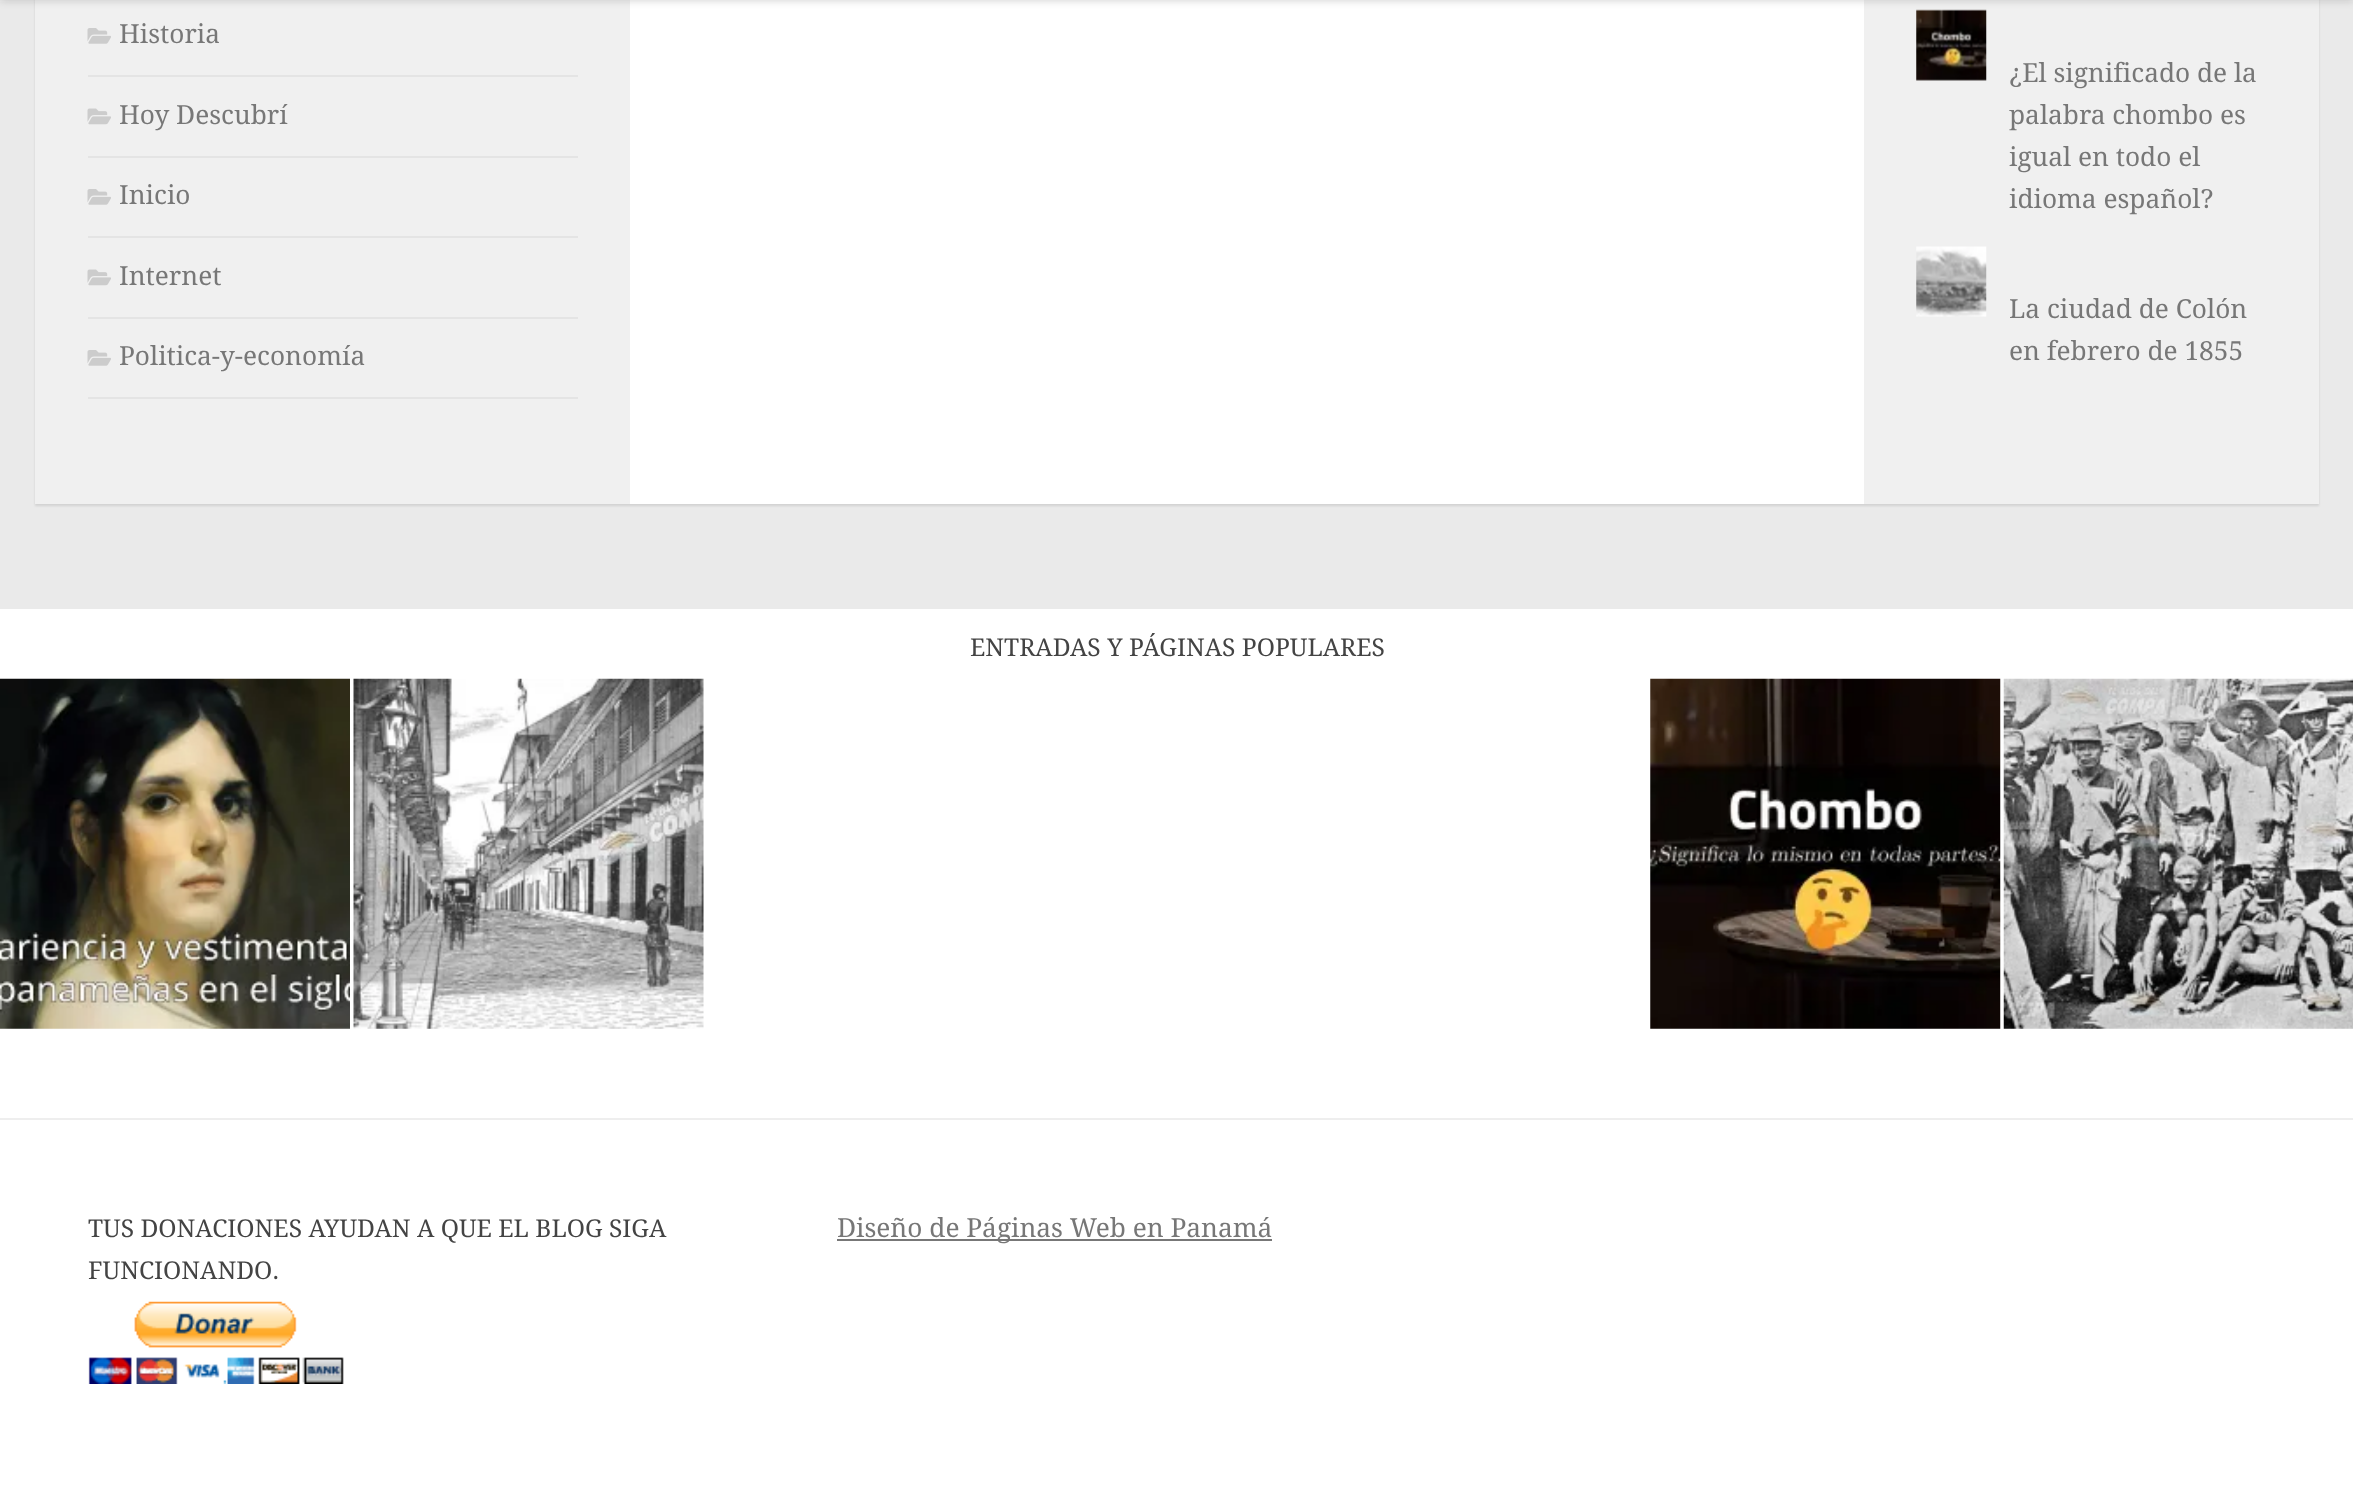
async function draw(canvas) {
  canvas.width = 2353;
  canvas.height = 1496;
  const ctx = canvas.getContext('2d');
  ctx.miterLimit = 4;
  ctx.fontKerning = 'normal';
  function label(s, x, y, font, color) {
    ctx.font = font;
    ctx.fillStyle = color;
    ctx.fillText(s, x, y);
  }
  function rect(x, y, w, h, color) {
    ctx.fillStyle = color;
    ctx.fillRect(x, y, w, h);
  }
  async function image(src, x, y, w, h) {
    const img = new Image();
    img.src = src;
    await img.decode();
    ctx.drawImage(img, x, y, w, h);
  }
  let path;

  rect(0, 0, 2353, 1496, '#eaeaea');
  ctx.fillStyle = '#0000001a';
  ctx.filter = 'blur(1px)';
  ctx.beginPath();
  ctx.rect(35, -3, 2284, 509);
  ctx.fill();
  ctx.filter = 'none';
  rect(630, 0, 1234, 504, '#fff');
  rect(35, 0, 595, 504, '#f0f0f0');
  rect(1864, 0, 455, 504, '#f0f0f0');
  ctx.fillStyle = '#ffffff26';
  path = new Path2D('M0 0V2H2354V-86V0Z');
  ctx.fill(path);
  await image('assets/img3.png', 1916, 9, 71, 72);
  ctx.fillStyle = '#00000033';
  ctx.filter = 'blur(4.5px)';
  ctx.beginPath();
  ctx.rect(0, -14, 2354, 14);
  ctx.fill();
  ctx.filter = 'none';
  rect(88, 75, 490, 2, '#e4e4e4');
  await image('assets/img1.png', 87, 28, 24, 16);
  label('Historia', 119, 43, '26.25px Droid Serif', '#777');
  rect(88, 156, 490, 2, '#e4e4e4');
  await image('assets/img2.png', 87, 108, 24, 17);
  label('Hoy Descubrí', 119, 124, '26.25px Droid Serif', '#777');
  rect(88, 236, 490, 2, '#e4e4e4');
  await image('assets/img1.png', 87, 189, 24, 16);
  label('Inicio', 119, 204, '26.25px Droid Serif', '#777');
  rect(88, 317, 490, 2, '#e4e4e4');
  await image('assets/img2.png', 87, 269, 24, 17);
  label('Internet', 119, 285, '26.25px Droid Serif', '#777');
  rect(88, 397, 490, 2, '#e4e4e4');
  await image('assets/img1.png', 87, 350, 24, 16);
  label('Politica-y-economía', 119, 365, '26.25px Droid Serif', '#777');
  label('¿El significado de la', 2009, 82, '26.25px Droid Serif', '#777');
  label('palabra chombo es', 2009, 124, '26.25px Droid Serif', '#777');
  label('igual en todo el', 2009, 166, '26.25px Droid Serif', '#777');
  label('idioma español?', 2009, 208, '26.25px Droid Serif', '#777');
  await image('assets/img4.png', 1916, 246, 71, 71);
  label('La ciudad de Colón', 2009, 318, '26.25px Droid Serif', '#777');
  label('en febrero de 1855', 2009, 360, '26.25px Droid Serif', '#777');
  rect(0, 609, 2353, 887, '#fff');
  rect(0, 1118, 2353, 2, '#eee');
  label('ENTRADAS Y PÁGINAS POPULARES', 970, 656, '24.6px Droid Serif', '#444');
  await image('assets/img5.png', 0, 678, 350, 351);
  await image('assets/img6.png', 353, 678, 351, 351);
  await image('assets/img7.png', 1650, 678, 351, 351);
  await image('assets/img8.png', 2003, 678, 350, 351);
  label('TUS DONACIONES AYUDAN A QUE EL BLOG SIGA', 88, 1237, '24.6px Droid Serif', '#444');
  label('FUNCIONANDO.', 88, 1279, '24.6px Droid Serif', '#444');
  await image('assets/img9.png', 88, 1301, 256, 83);
  rect(837, 1239, 435, 2, '#777');
  label('Diseño de Páginas Web en Panamá', 837, 1237, '26.25px Droid Serif', '#777');
}

draw(document.querySelector('canvas'));
